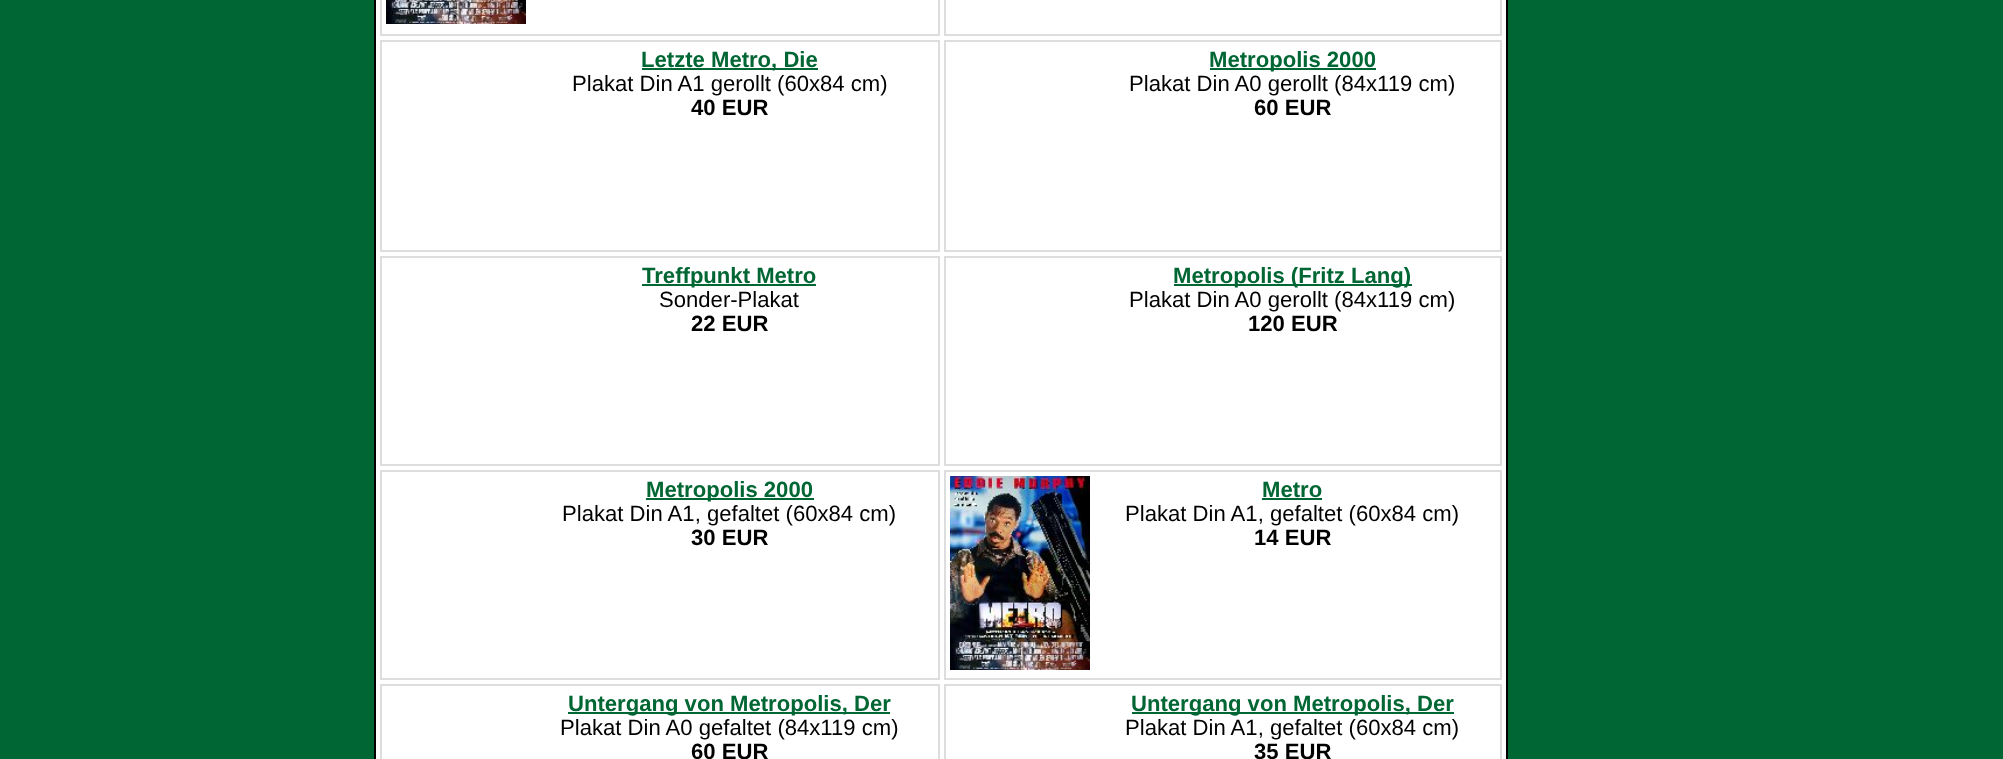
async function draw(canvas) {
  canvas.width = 2003;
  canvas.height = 759;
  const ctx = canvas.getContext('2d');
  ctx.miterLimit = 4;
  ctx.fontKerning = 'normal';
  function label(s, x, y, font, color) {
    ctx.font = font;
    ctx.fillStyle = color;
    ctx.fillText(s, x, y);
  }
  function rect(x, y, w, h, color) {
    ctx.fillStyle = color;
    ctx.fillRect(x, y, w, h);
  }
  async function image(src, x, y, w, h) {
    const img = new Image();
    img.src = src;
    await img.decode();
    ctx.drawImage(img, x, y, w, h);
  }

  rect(0, 0, 2003, 759, '#063');
  ctx.fillStyle = '#fff';
  ctx.beginPath();
  ctx.rect(375, -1, 1132, 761);
  ctx.fill();
  ctx.strokeStyle = '#000';
  ctx.lineWidth = 2;
  ctx.stroke();
  ctx.strokeStyle = '#ddd';
  ctx.strokeRect(381, -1, 558, 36);
  await image('assets/img1.png', 386, 0, 140, 24);
  ctx.strokeRect(945, -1, 556, 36);
  ctx.strokeRect(381, 41, 558, 210);
  rect(642, 68, 176, 2, '#063');
  label('Letzte Metro, Die', 641, 67, 'bold 22.1px Liberation Sans', '#063');
  label('Plakat Din A1 gerollt (60x84 cm)', 572, 91, '22.1px Liberation Sans', '#000');
  label('40 EUR', 691, 115, 'bold 22.1px Liberation Sans', '#000');
  ctx.strokeRect(945, 41, 556, 210);
  rect(1210, 68, 166, 2, '#063');
  label('Metropolis 2000', 1209, 67, 'bold 22.1px Liberation Sans', '#063');
  label('Plakat Din A0 gerollt (84x119 cm)', 1129, 91, '22.1px Liberation Sans', '#000');
  label('60 EUR', 1254, 115, 'bold 22.1px Liberation Sans', '#000');
  ctx.strokeRect(381, 257, 558, 208);
  rect(642, 284, 174, 2, '#063');
  label('Treffpunkt Metro', 642, 283, 'bold 22.1px Liberation Sans', '#063');
  label('Sonder-Plakat', 659, 307, '22.1px Liberation Sans', '#000');
  label('22 EUR', 691, 331, 'bold 22.1px Liberation Sans', '#000');
  ctx.strokeRect(945, 257, 556, 208);
  rect(1174, 284, 238, 2, '#063');
  label('Metropolis (Fritz Lang)', 1173, 283, 'bold 22.1px Liberation Sans', '#063');
  label('Plakat Din A0 gerollt (84x119 cm)', 1129, 307, '22.1px Liberation Sans', '#000');
  label('120 EUR', 1248, 331, 'bold 22.1px Liberation Sans', '#000');
  ctx.strokeRect(381, 471, 558, 208);
  rect(646, 498, 168, 2, '#063');
  label('Metropolis 2000', 646, 497, 'bold 22.1px Liberation Sans', '#063');
  label('Plakat Din A1, gefaltet (60x84 cm)', 562, 521, '22.1px Liberation Sans', '#000');
  label('30 EUR', 691, 545, 'bold 22.1px Liberation Sans', '#000');
  ctx.strokeRect(945, 471, 556, 208);
  await image('assets/img2.png', 950, 476, 140, 194);
  label('Metro', 1262, 497, 'bold 22.1px Liberation Sans', '#063');
  rect(1262, 498, 60, 2, '#063');
  label('Plakat Din A1, gefaltet (60x84 cm)', 1125, 521, '22.1px Liberation Sans', '#000');
  label('14 EUR', 1254, 545, 'bold 22.1px Liberation Sans', '#000');
  ctx.strokeRect(381, 685, 558, 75);
  rect(568, 712, 322, 2, '#063');
  label('Untergang von Metropolis, Der', 568, 711, 'bold 22.1px Liberation Sans', '#063');
  label('Plakat Din A0 gefaltet (84x119 cm)', 560, 735, '22.1px Liberation Sans', '#000');
  label('60 EUR', 691, 759, 'bold 22.1px Liberation Sans', '#000');
  ctx.strokeRect(945, 685, 556, 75);
  rect(1132, 712, 322, 2, '#063');
  label('Untergang von Metropolis, Der', 1131, 711, 'bold 22.1px Liberation Sans', '#063');
  label('Plakat Din A1, gefaltet (60x84 cm)', 1125, 735, '22.1px Liberation Sans', '#000');
  label('35 EUR', 1254, 759, 'bold 22.1px Liberation Sans', '#000');
}

draw(document.querySelector('canvas'));
